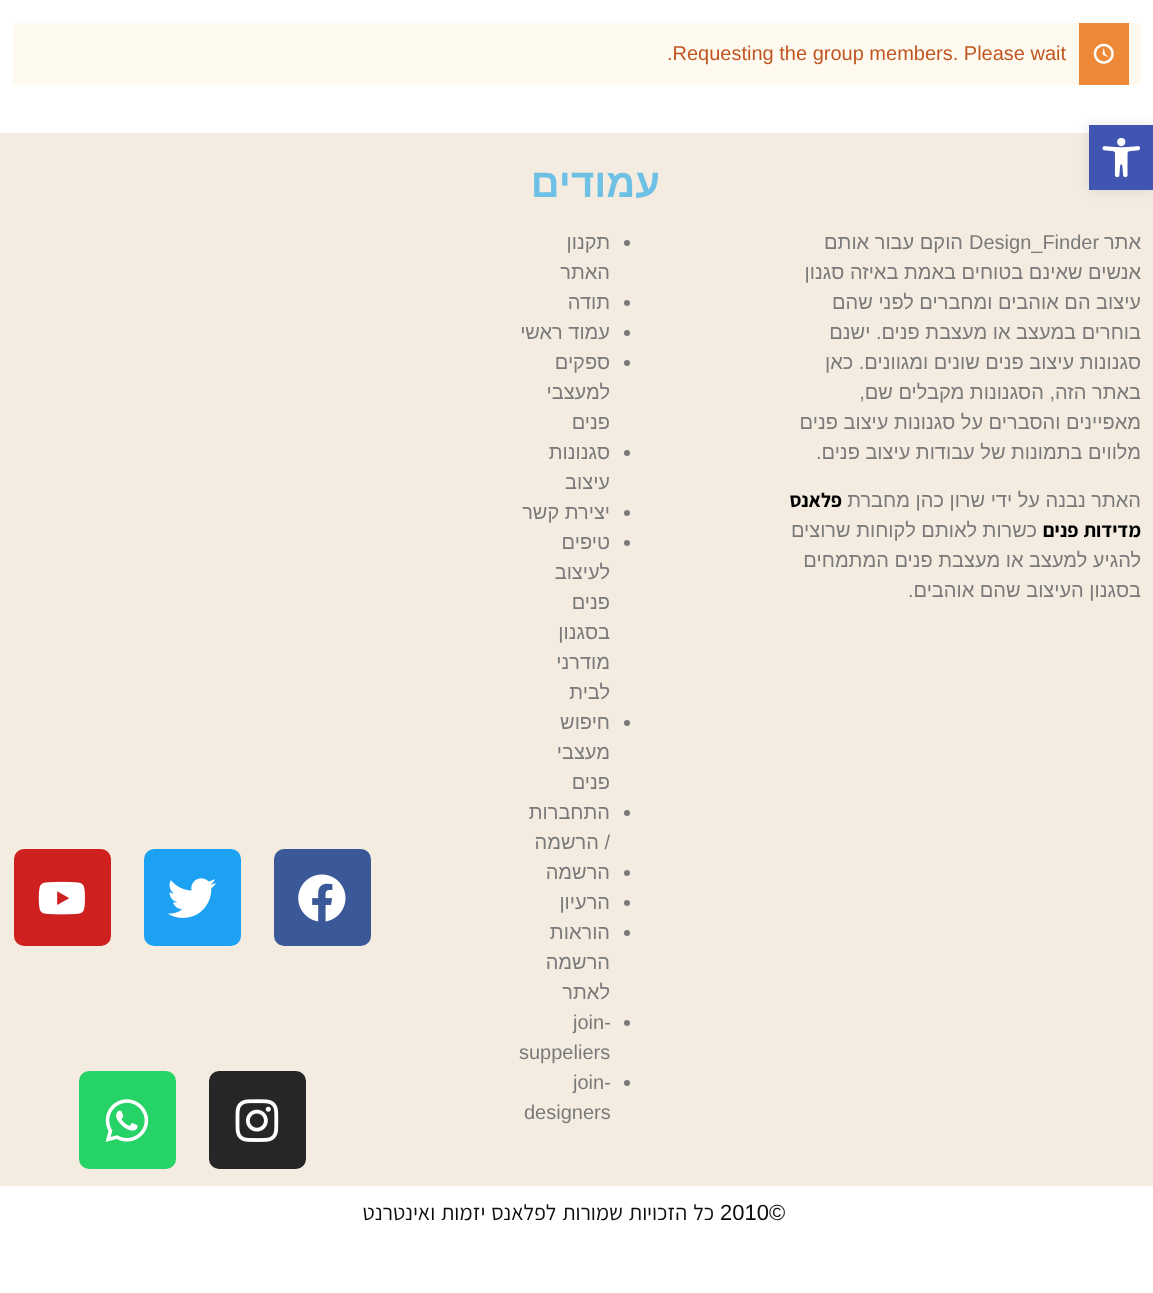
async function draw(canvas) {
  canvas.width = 1153;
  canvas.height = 1293;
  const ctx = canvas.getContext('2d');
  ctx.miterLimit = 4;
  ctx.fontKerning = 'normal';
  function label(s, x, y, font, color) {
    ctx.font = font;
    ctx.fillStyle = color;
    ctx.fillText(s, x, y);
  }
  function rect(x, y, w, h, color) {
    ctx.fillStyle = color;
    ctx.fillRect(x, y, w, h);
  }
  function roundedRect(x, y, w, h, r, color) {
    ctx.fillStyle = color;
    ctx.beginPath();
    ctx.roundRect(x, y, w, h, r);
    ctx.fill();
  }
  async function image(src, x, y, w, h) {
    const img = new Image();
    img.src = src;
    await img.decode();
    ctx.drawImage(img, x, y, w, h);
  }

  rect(0, 0, 1153, 1293, '#fff');
  roundedRect(13, 23, 1128, 62, 4, '#fffaf0');
  rect(1079, 23, 50, 62, '#ed8936');
  await image('assets/img1.png', 1093, 43, 21, 21);
  label('.Requesting the group members. Please wait', 667, 60, '20px Liberation Sans', '#c05621');
  rect(0, 133, 1153, 1053, '#f4ece1');
  ctx.fillStyle = '#0000001a';
  ctx.filter = 'blur(6px)';
  ctx.beginPath();
  ctx.rect(1089, 125, 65, 65);
  ctx.fill();
  ctx.filter = 'none';
  rect(1089, 125, 64, 65, '#4054b2');
  await image('assets/img2.png', 1102, 138, 38, 40);
  ctx.direction = 'rtl';
  label('אתר', 1141, 249, '20px Liberation Sans', '#7a7a7a');
  ctx.direction = 'ltr';
  label('Design_Finder', 969, 249, '20px Liberation Sans', '#7a7a7a');
  ctx.direction = 'rtl';
  label('הוקם עבור אותם', 963, 249, '20px Liberation Sans', '#7a7a7a');
  label('אנשים שאינם בטוחים באמת באיזה סגנון', 1141, 279, '20px Liberation Sans', '#7a7a7a');
  label('עיצוב הם אוהבים ומחברים לפני שהם', 1141, 309, '20px Liberation Sans', '#7a7a7a');
  label('בוחרים במעצב או מעצבת פנים. ישנם', 1141, 339, '20px Liberation Sans', '#7a7a7a');
  label('סגנונות עיצוב פנים שונים ומגוונים. כאן', 1141, 369, '20px Liberation Sans', '#7a7a7a');
  label('באתר הזה, הסגנונות מקבלים שם,', 1141, 399, '20px Liberation Sans', '#7a7a7a');
  label('מאפיינים והסברים על סגנונות עיצוב פנים', 1141, 429, '20px Liberation Sans', '#7a7a7a');
  label('מלווים בתמונות של עבודות עיצוב פנים.', 1141, 459, '20px Liberation Sans', '#7a7a7a');
  label('האתר נבנה על ידי שרון כהן מחברת', 1141, 507, '20px Liberation Sans', '#7a7a7a');
  label('פלאנס', 842, 507, 'bold 20px Assistant', '#000');
  ctx.wordSpacing = '1px';
  label('מדידות פנים', 1141, 537, 'bold 20px Assistant', '#000');
  ctx.wordSpacing = '0px';
  label('כשרות לאותם לקוחות שרוצים', 1037, 537, '20px Liberation Sans', '#7a7a7a');
  label('להגיע למעצב או מעצבת פנים המתמחים', 1141, 567, '20px Liberation Sans', '#7a7a7a');
  label('בסגנון העיצוב שהם אוהבים.', 1141, 597, '20px Liberation Sans', '#7a7a7a');
  label('עמודים', 660, 197, 'bold 40px Liberation Sans', '#6ec1e4');
  ctx.fillStyle = '#7a7a7a';
  ctx.beginPath();
  ctx.arc(627, 243, 3, 0, 2 * Math.PI);
  ctx.fill();
  label('תקנון', 610, 249, '20px Liberation Sans', '#7a7a7a');
  label('האתר', 610, 279, '20px Liberation Sans', '#7a7a7a');
  ctx.beginPath();
  ctx.arc(627, 303, 3, 0, 2 * Math.PI);
  ctx.fill();
  label('תודה', 610, 309, '20px Liberation Sans', '#7a7a7a');
  ctx.beginPath();
  ctx.arc(627, 333, 3, 0, 2 * Math.PI);
  ctx.fill();
  label('עמוד ראשי', 610, 339, '20px Liberation Sans', '#7a7a7a');
  ctx.beginPath();
  ctx.arc(627, 363, 3, 0, 2 * Math.PI);
  ctx.fill();
  label('ספקים', 610, 369, '20px Liberation Sans', '#7a7a7a');
  label('למעצבי', 610, 399, '20px Liberation Sans', '#7a7a7a');
  label('פנים', 610, 429, '20px Liberation Sans', '#7a7a7a');
  ctx.beginPath();
  ctx.arc(627, 453, 3, 0, 2 * Math.PI);
  ctx.fill();
  label('סגנונות', 610, 459, '20px Liberation Sans', '#7a7a7a');
  label('עיצוב', 610, 489, '20px Liberation Sans', '#7a7a7a');
  ctx.beginPath();
  ctx.arc(627, 513, 3, 0, 2 * Math.PI);
  ctx.fill();
  label('יצירת קשר', 610, 519, '20px Liberation Sans', '#7a7a7a');
  ctx.beginPath();
  ctx.arc(627, 543, 3, 0, 2 * Math.PI);
  ctx.fill();
  label('טיפים', 610, 549, '20px Liberation Sans', '#7a7a7a');
  label('לעיצוב', 610, 579, '20px Liberation Sans', '#7a7a7a');
  label('פנים', 610, 609, '20px Liberation Sans', '#7a7a7a');
  label('בסגנון', 610, 639, '20px Liberation Sans', '#7a7a7a');
  label('מודרני', 610, 669, '20px Liberation Sans', '#7a7a7a');
  label('לבית', 610, 699, '20px Liberation Sans', '#7a7a7a');
  ctx.beginPath();
  ctx.arc(627, 723, 3, 0, 2 * Math.PI);
  ctx.fill();
  label('חיפוש', 610, 729, '20px Liberation Sans', '#7a7a7a');
  label('מעצבי', 610, 759, '20px Liberation Sans', '#7a7a7a');
  label('פנים', 610, 789, '20px Liberation Sans', '#7a7a7a');
  ctx.beginPath();
  ctx.arc(627, 813, 3, 0, 2 * Math.PI);
  ctx.fill();
  label('התחברות', 610, 819, '20px Liberation Sans', '#7a7a7a');
  label('/ הרשמה', 610, 849, '20px Liberation Sans', '#7a7a7a');
  ctx.beginPath();
  ctx.arc(627, 873, 3, 0, 2 * Math.PI);
  ctx.fill();
  label('הרשמה', 610, 879, '20px Liberation Sans', '#7a7a7a');
  ctx.beginPath();
  ctx.arc(627, 903, 3, 0, 2 * Math.PI);
  ctx.fill();
  label('הרעיון', 610, 909, '20px Liberation Sans', '#7a7a7a');
  ctx.beginPath();
  ctx.arc(627, 933, 3, 0, 2 * Math.PI);
  ctx.fill();
  label('הוראות', 610, 939, '20px Liberation Sans', '#7a7a7a');
  label('הרשמה', 610, 969, '20px Liberation Sans', '#7a7a7a');
  label('לאתר', 610, 999, '20px Liberation Sans', '#7a7a7a');
  ctx.beginPath();
  ctx.arc(627, 1023, 3, 0, 2 * Math.PI);
  ctx.fill();
  ctx.direction = 'ltr';
  label('join-', 573, 1029, '20px Liberation Sans', '#7a7a7a');
  label('suppeliers', 519, 1059, '20px Liberation Sans', '#7a7a7a');
  ctx.beginPath();
  ctx.arc(627, 1083, 3, 0, 2 * Math.PI);
  ctx.fill();
  label('join-', 573, 1089, '20px Liberation Sans', '#7a7a7a');
  label('designers', 524, 1119, '20px Liberation Sans', '#7a7a7a');
  roundedRect(274, 849, 97, 97, 10, '#3b5998');
  await image('assets/img3.png', 298, 874, 48, 48);
  roundedRect(144, 849, 97, 97, 10, '#1da1f2');
  await image('assets/img4.png', 168, 878, 48, 40);
  roundedRect(14, 849, 97, 97, 10, '#cd201f');
  await image('assets/img5.png', 38, 881, 47, 34);
  roundedRect(209, 1071, 97, 98, 10, '#262626');
  await image('assets/img6.png', 235, 1099, 44, 43);
  roundedRect(79, 1071, 97, 98, 10, '#25d366');
  await image('assets/img7.png', 105, 1099, 44, 43);
  label('2010©', 720, 1220, '22px Liberation Sans', '#0d0d0d');
  ctx.wordSpacing = '1.5px';
  ctx.direction = 'rtl';
  label('כל הזכויות שמורות לפלאנס יזמות ואינטרנט', 714, 1220, '22px Assistant', '#0d0d0d');
}

draw(document.querySelector('canvas'));
